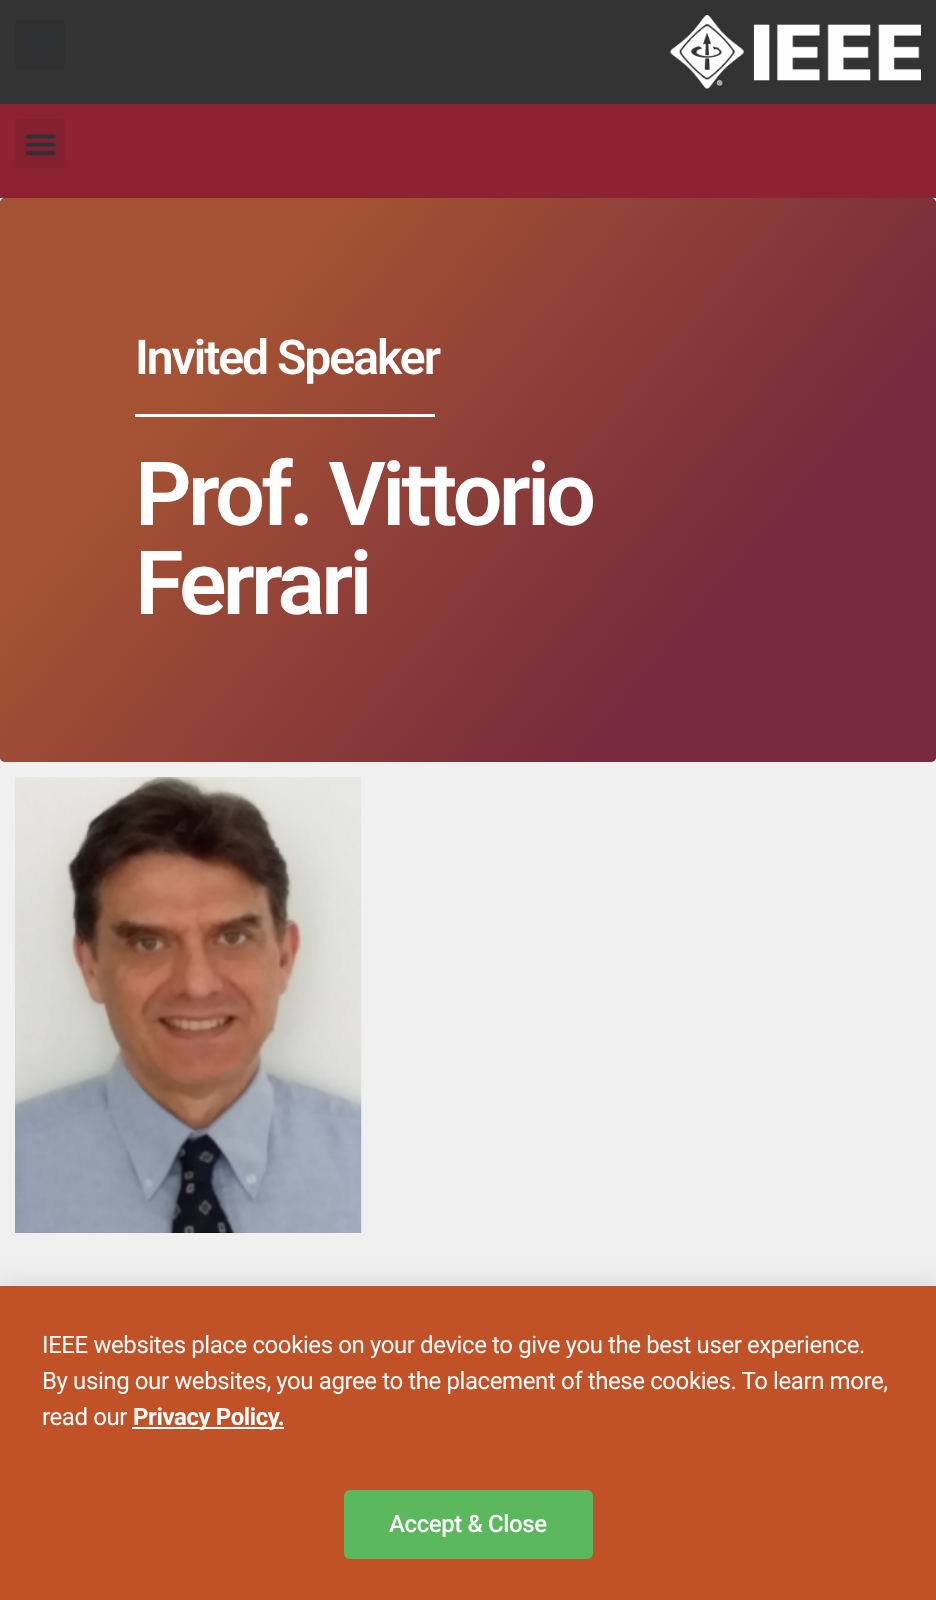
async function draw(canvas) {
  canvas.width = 936;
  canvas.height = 1600;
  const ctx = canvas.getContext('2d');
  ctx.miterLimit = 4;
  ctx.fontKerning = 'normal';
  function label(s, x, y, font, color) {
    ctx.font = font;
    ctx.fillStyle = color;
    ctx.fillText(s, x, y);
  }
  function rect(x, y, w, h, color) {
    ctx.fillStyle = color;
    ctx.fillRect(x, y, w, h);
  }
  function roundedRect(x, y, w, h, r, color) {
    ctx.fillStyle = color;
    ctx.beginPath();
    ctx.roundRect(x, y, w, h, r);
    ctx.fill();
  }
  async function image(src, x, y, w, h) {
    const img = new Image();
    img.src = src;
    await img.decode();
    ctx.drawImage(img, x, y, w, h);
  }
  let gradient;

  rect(0, 0, 936, 1600, '#f0f0f0');
  rect(0, 0, 936, 104, '#333');
  roundedRect(15, 20, 50, 49, 5, '#303030');
  await image('assets/img1.png', 26, 35, 29, 21);
  await image('assets/img2.png', 670, 15, 251, 74);
  rect(0, 104, 936, 94, '#8c2232');
  roundedRect(15, 119, 50, 49, 5, '#852030');
  await image('assets/img3.png', 25, 134, 31, 21);
  roundedRect(0, 198, 936, 564, 5, '#005978');
  gradient = ctx.createLinearGradient(55, 133, 881, 827);
  gradient.addColorStop(0.25, '#c15127d9');
  gradient.addColorStop(0.75, '#8c2232d9');
  ctx.fillStyle = gradient;
  ctx.beginPath();
  ctx.roundRect(0, 198, 936, 564, 5);
  ctx.fill();
  ctx.letterSpacing = '-2px';
  label('Invited Speaker', 135, 374, '600 48px Roboto', '#fff');
  rect(135, 414, 300, 3, '#fff');
  ctx.letterSpacing = '-3.75px';
  label('Prof. Vittorio', 135, 525, '600 88.5px Roboto', '#fff');
  label('Ferrari', 135, 614, '600 88.5px Roboto', '#fff');
  await image('assets/img4.png', 15, 777, 347, 456);
  ctx.fillStyle = '#00000033';
  ctx.filter = 'blur(17px)';
  ctx.beginPath();
  ctx.rect(-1, 1293, 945, 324);
  ctx.fill();
  ctx.filter = 'none';
  rect(0, 1286, 936, 314, '#c15127');
  ctx.letterSpacing = '-0.4px';
  label('IEEE websites place cookies on your device to give you the best user experience.', 42, 1353, '24px Roboto', '#fff');
  label('By using our websites, you agree to the placement of these cookies. To learn more,', 42, 1389, '24px Roboto', '#fff');
  label('read our', 42, 1425, '24px Roboto', '#fff');
  rect(132, 1427, 152, 2, '#fff');
  label('Privacy Policy.', 133, 1425, 'bold 24px Roboto', '#fff');
  roundedRect(344, 1490, 249, 69, 6, '#5cb85c');
  label('Accept & Close', 389, 1532, '500 24px Roboto', '#fff');
}

draw(document.querySelector('canvas'));
